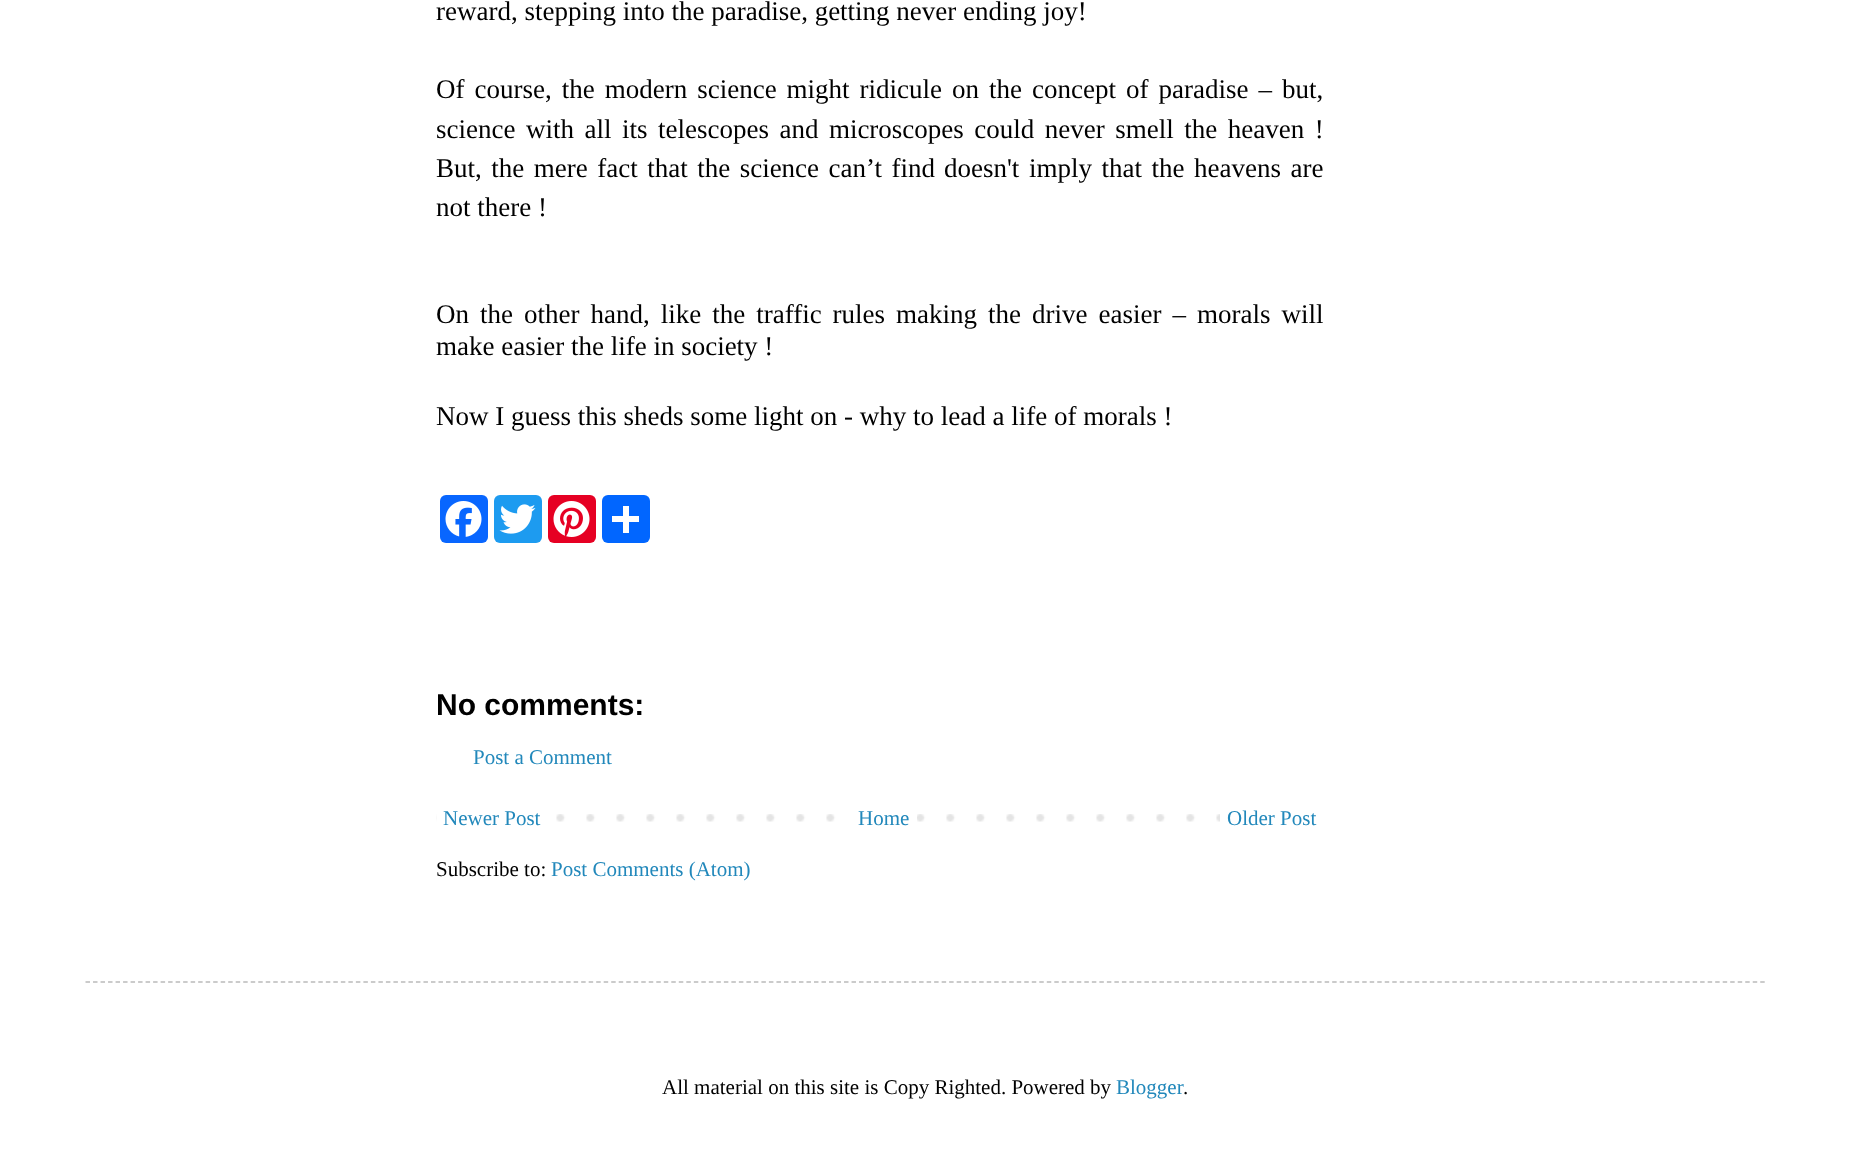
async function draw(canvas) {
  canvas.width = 1849;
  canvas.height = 1161;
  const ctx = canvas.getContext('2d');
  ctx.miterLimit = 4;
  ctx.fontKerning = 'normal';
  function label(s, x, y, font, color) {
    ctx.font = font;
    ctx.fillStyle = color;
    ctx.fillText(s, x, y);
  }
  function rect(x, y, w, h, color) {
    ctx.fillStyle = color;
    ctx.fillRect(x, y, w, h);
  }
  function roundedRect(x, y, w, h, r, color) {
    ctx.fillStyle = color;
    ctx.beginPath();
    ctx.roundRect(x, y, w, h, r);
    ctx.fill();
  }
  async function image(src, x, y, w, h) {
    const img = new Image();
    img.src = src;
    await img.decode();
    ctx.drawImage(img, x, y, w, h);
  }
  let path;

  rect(0, 0, 1849, 1161, '#fff');
  label('reward, stepping into the paradise, getting never ending joy!', 436, 20, '27px Liberation Serif', '#000');
  ctx.wordSpacing = '3.25px';
  label('Of course, the modern science might ridicule on the concept of paradise – but,', 436, 98, '27px Liberation Serif', '#000');
  ctx.wordSpacing = '3.75px';
  label('science with all its telescopes and microscopes could never smell the heaven !', 436, 138, '27px Liberation Serif', '#000');
  ctx.wordSpacing = '2.75px';
  label('But, the mere fact that the science can’t find', 436, 177, '27px Liberation Serif', '#000');
  ctx.wordSpacing = '0px';
  label('doesn\'t', 944, 177, '27px Liberation Serif', '#000');
  ctx.wordSpacing = '2.75px';
  label('imply that the heavens are', 1029, 177, '27px Liberation Serif', '#000');
  ctx.wordSpacing = '0px';
  label('not there !', 436, 216, '27px Liberation Serif', '#000');
  ctx.wordSpacing = '4.25px';
  label('On the other hand, like the traffic rules making the drive easier – morals will', 436, 323, '27px Liberation Serif', '#000');
  ctx.wordSpacing = '0px';
  label('make easier the life in society !', 436, 355, '27px Liberation Serif', '#000');
  label('Now I guess this sheds some light on - why to lead a life of morals !', 436, 425, '27px Liberation Serif', '#000');
  roundedRect(440, 495, 48, 48, 6, '#0866ff');
  await image('assets/img1.png', 445, 501, 37, 36);
  roundedRect(494, 495, 48, 48, 6, '#1d9bf0');
  await image('assets/img2.png', 499, 504, 37, 30);
  roundedRect(548, 495, 48, 48, 6, '#e60023');
  await image('assets/img3.png', 553, 501, 37, 36);
  roundedRect(602, 495, 48, 48, 6, '#0166ff');
  rect(623, 506, 6, 27, '#fff');
  rect(612, 516, 27, 6, '#fff');
  label('No comments:', 436, 715, 'bold 30px Liberation Sans', '#000');
  label('Post a Comment', 473, 764, '21px Liberation Serif', '#28b');
  await image('assets/img4.png', 436, 814, 784, 8);
  rect(437, 814, 98, 8, '#fff');
  label('Newer Post', 443, 825, '21px Liberation Serif', '#28b');
  rect(856, 814, 61, 8, '#fff');
  label('Home', 858, 825, '21px Liberation Serif', '#28b');
  label('Older Post', 1227, 825, '21px Liberation Serif', '#28b');
  label('Subscribe to:', 436, 876, '21px Liberation Serif', '#000');
  label('Post Comments (Atom)', 551, 876, '21px Liberation Serif', '#28b');
  path = new Path2D('M85.5 982H1765.5');
  ctx.strokeStyle = '#bbb';
  ctx.lineWidth = 1.5;
  ctx.setLineDash([4.5, 3.01]);
  ctx.stroke(path);
  label('All material on this site is Copy Righted. Powered by', 662, 1094, '21px Liberation Serif', '#000');
  label('Blogger', 1116, 1094, '21px Liberation Serif', '#28b');
  label('.', 1183, 1094, '21px Liberation Serif', '#000');
}

draw(document.querySelector('canvas'));
